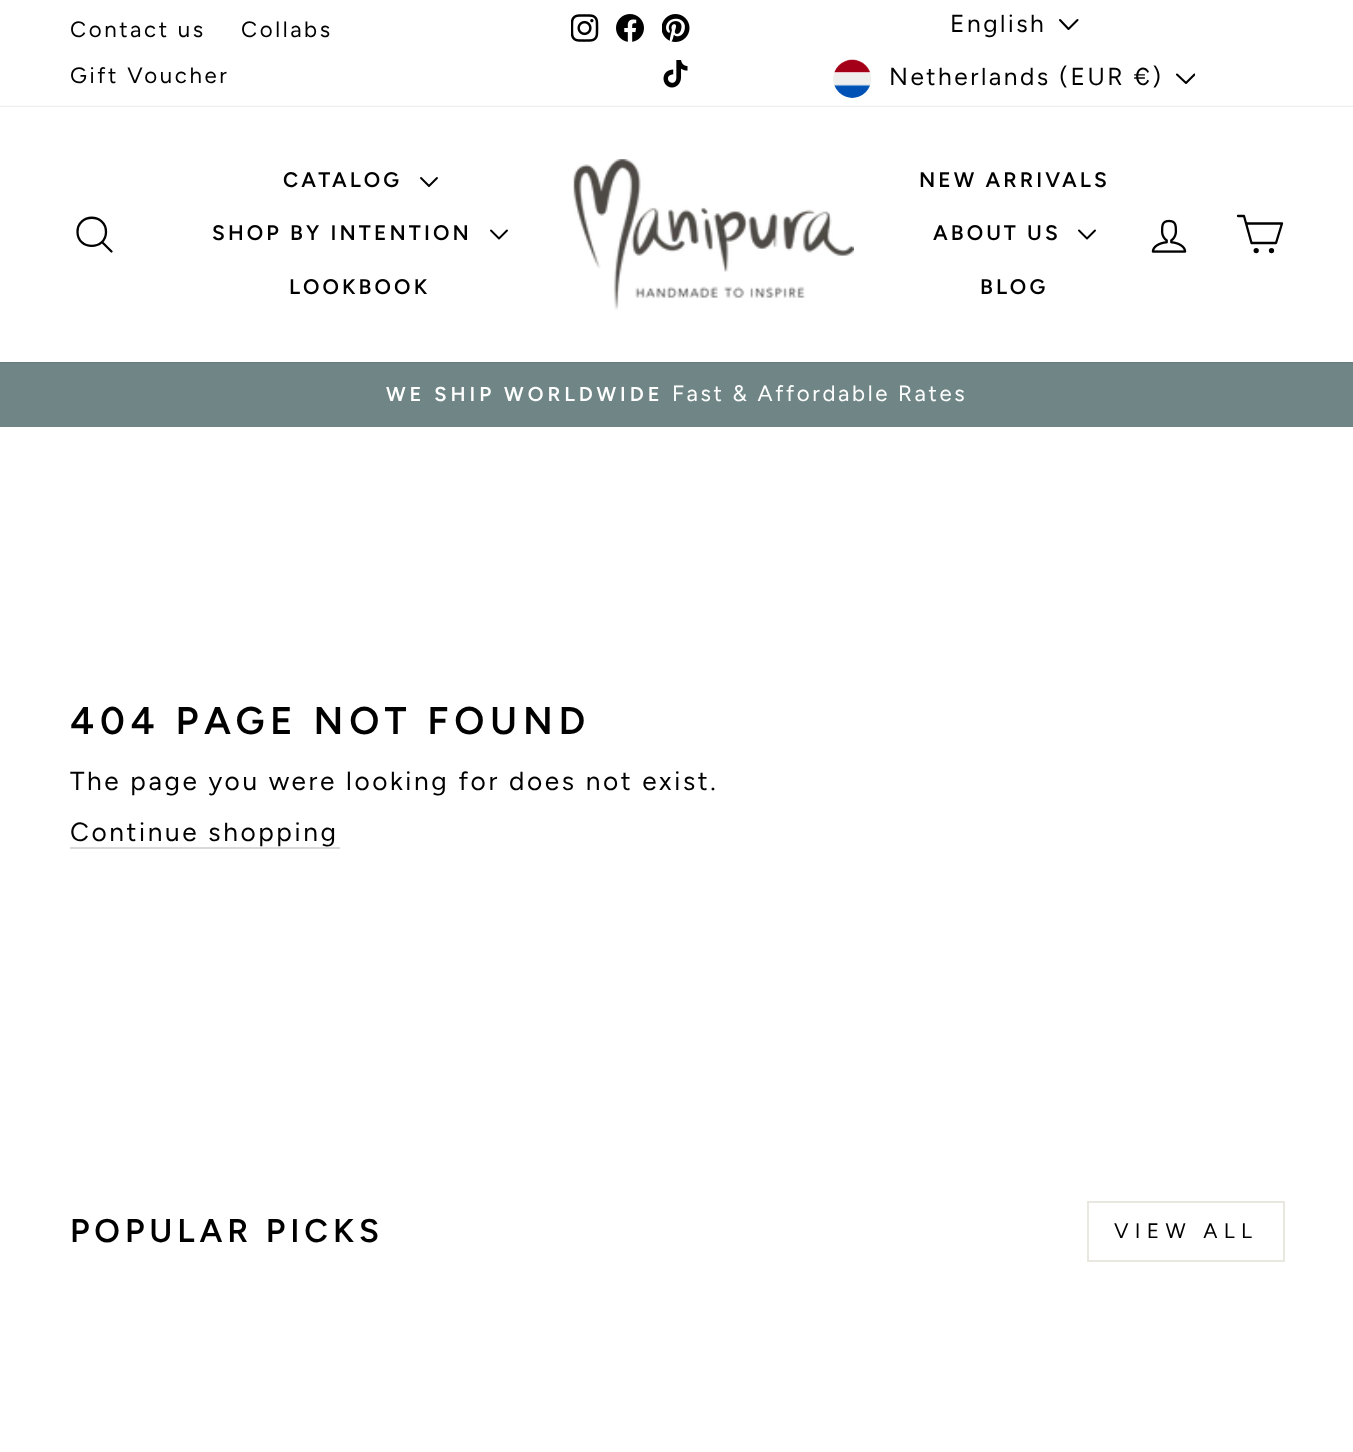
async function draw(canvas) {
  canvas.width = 1353;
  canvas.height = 1452;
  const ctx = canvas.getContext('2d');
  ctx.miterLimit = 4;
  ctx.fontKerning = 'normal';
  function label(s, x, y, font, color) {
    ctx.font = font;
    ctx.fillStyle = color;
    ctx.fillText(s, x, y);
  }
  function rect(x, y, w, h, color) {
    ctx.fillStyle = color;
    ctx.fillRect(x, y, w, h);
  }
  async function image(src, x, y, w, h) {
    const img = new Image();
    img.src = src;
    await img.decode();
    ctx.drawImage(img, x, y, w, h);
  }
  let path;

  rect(0, 0, 1353, 1452, '#fff');
  ctx.letterSpacing = '2.6px';
  label('Contact us', 70, 37, '22.25px Figtree', '#000');
  label('Collabs', 241, 37, '22.25px Figtree', '#000');
  label('Gift Voucher', 70, 83, '22.25px Figtree', '#000');
  await image('assets/img1.png', 571, 14, 28, 28);
  await image('assets/img2.png', 616, 14, 28, 28);
  await image('assets/img3.png', 662, 14, 28, 28);
  await image('assets/img4.png', 663, 60, 25, 28);
  ctx.letterSpacing = '2.5px';
  label('English', 950, 32, '24.5px Figtree', '#000');
  path = new Path2D('M1060 20L1068.5 29L1077.5 20');
  ctx.strokeStyle = '#000';
  ctx.lineWidth = 2.1;
  ctx.lineCap = 'round';
  ctx.lineJoin = 'round';
  ctx.stroke(path);
  await image('assets/img5.png', 833, 59, 38, 39);
  label('Netherlands (EUR €)', 889, 85, '24.5px Figtree', '#000');
  ctx.save();
  ctx.beginPath();
  ctx.rect(1176, 70, 19, 19);
  ctx.clip();
  path = new Path2D('M1177 74.5L1186 83L1194.5 74.5');
  ctx.stroke(path);
  ctx.restore();
  rect(0, 362, 1353, 65, '#708686');
  ctx.save();
  path = new Path2D('M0 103H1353V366H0ZM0 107H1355V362H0Z');
  ctx.clip(path, 'evenodd');
  ctx.fillStyle = '#00000033';
  ctx.filter = 'blur(1px)';
  ctx.beginPath();
  ctx.rect(0, 107, 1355, 255);
  ctx.fill();
  ctx.filter = 'none';
  ctx.restore();
  path = new Path2D('M106 232C106 250.5 77.5 250.5 77.5 232C77.5 213 106 213 106 232ZM111.5 251.5L102 242');
  ctx.lineWidth = 2.3;
  ctx.stroke(path);
  ctx.letterSpacing = '3.1px';
  label('CATALOG', 283, 187, '600 21px Figtree', '#000');
  path = new Path2D('M421 178L429 186L437 178');
  ctx.lineWidth = 1.9;
  ctx.stroke(path);
  label('SHOP BY INTENTION', 212, 240, '600 21px Figtree', '#000');
  path = new Path2D('M491 230.5L499 238.5L507 230.5');
  ctx.stroke(path);
  label('LOOKBOOK', 289, 294, '600 21px Figtree', '#000');
  await image('assets/img6.png', 573, 159, 281, 151);
  label('NEW ARRIVALS', 919, 187, '600 21px Figtree', '#000');
  label('ABOUT US', 933, 240, '600 21px Figtree', '#000');
  path = new Path2D('M1079 230.5L1087 238.5L1095 230.5');
  ctx.stroke(path);
  label('BLOG', 980, 294, '600 21px Figtree', '#000');
  await image('assets/img7.png', 1151, 219, 36, 34);
  path = new Path2D('M1246 223.5H1282L1276 243H1251.5L1244 216H1238');
  ctx.lineWidth = 2.3;
  ctx.stroke(path);
  ctx.beginPath();
  ctx.arc(1256.2, 250.6, 1.5, 0, 2 * Math.PI);
  ctx.fill();
  ctx.stroke();
  ctx.beginPath();
  ctx.arc(1271.5, 250.6, 1.5, 0, 2 * Math.PI);
  ctx.fill();
  ctx.stroke();
  ctx.letterSpacing = '4px';
  label('WE SHIP WORLDWIDE', 386, 401, '600 20.1px Figtree', '#fff');
  ctx.letterSpacing = '2.6px';
  label('Fast & Affordable Rates', 672, 401, '22.25px Figtree', '#fff');
  ctx.letterSpacing = '5.75px';
  label('404 PAGE NOT FOUND', 70, 734, '600 38.5px Figtree', '#000');
  ctx.letterSpacing = '2.6px';
  label('The page you were looking for does not exist.', 70, 790, '26.25px Figtree', '#000');
  label('Continue shopping', 70, 841, '26.25px Figtree', '#000');
  rect(70, 847, 270, 2, '#d9d9d9');
  ctx.letterSpacing = '4.9px';
  label('POPULAR PICKS', 70, 1242, '600 32.75px Figtree', '#000');
  ctx.strokeStyle = '#e8e8e1';
  ctx.lineWidth = 2;
  ctx.lineJoin = 'miter';
  ctx.strokeRect(1088, 1202, 196, 59);
  ctx.letterSpacing = '6.25px';
  label('VIEW ALL', 1114, 1238, '21px Figtree', '#000');
}

draw(document.querySelector('canvas'));
